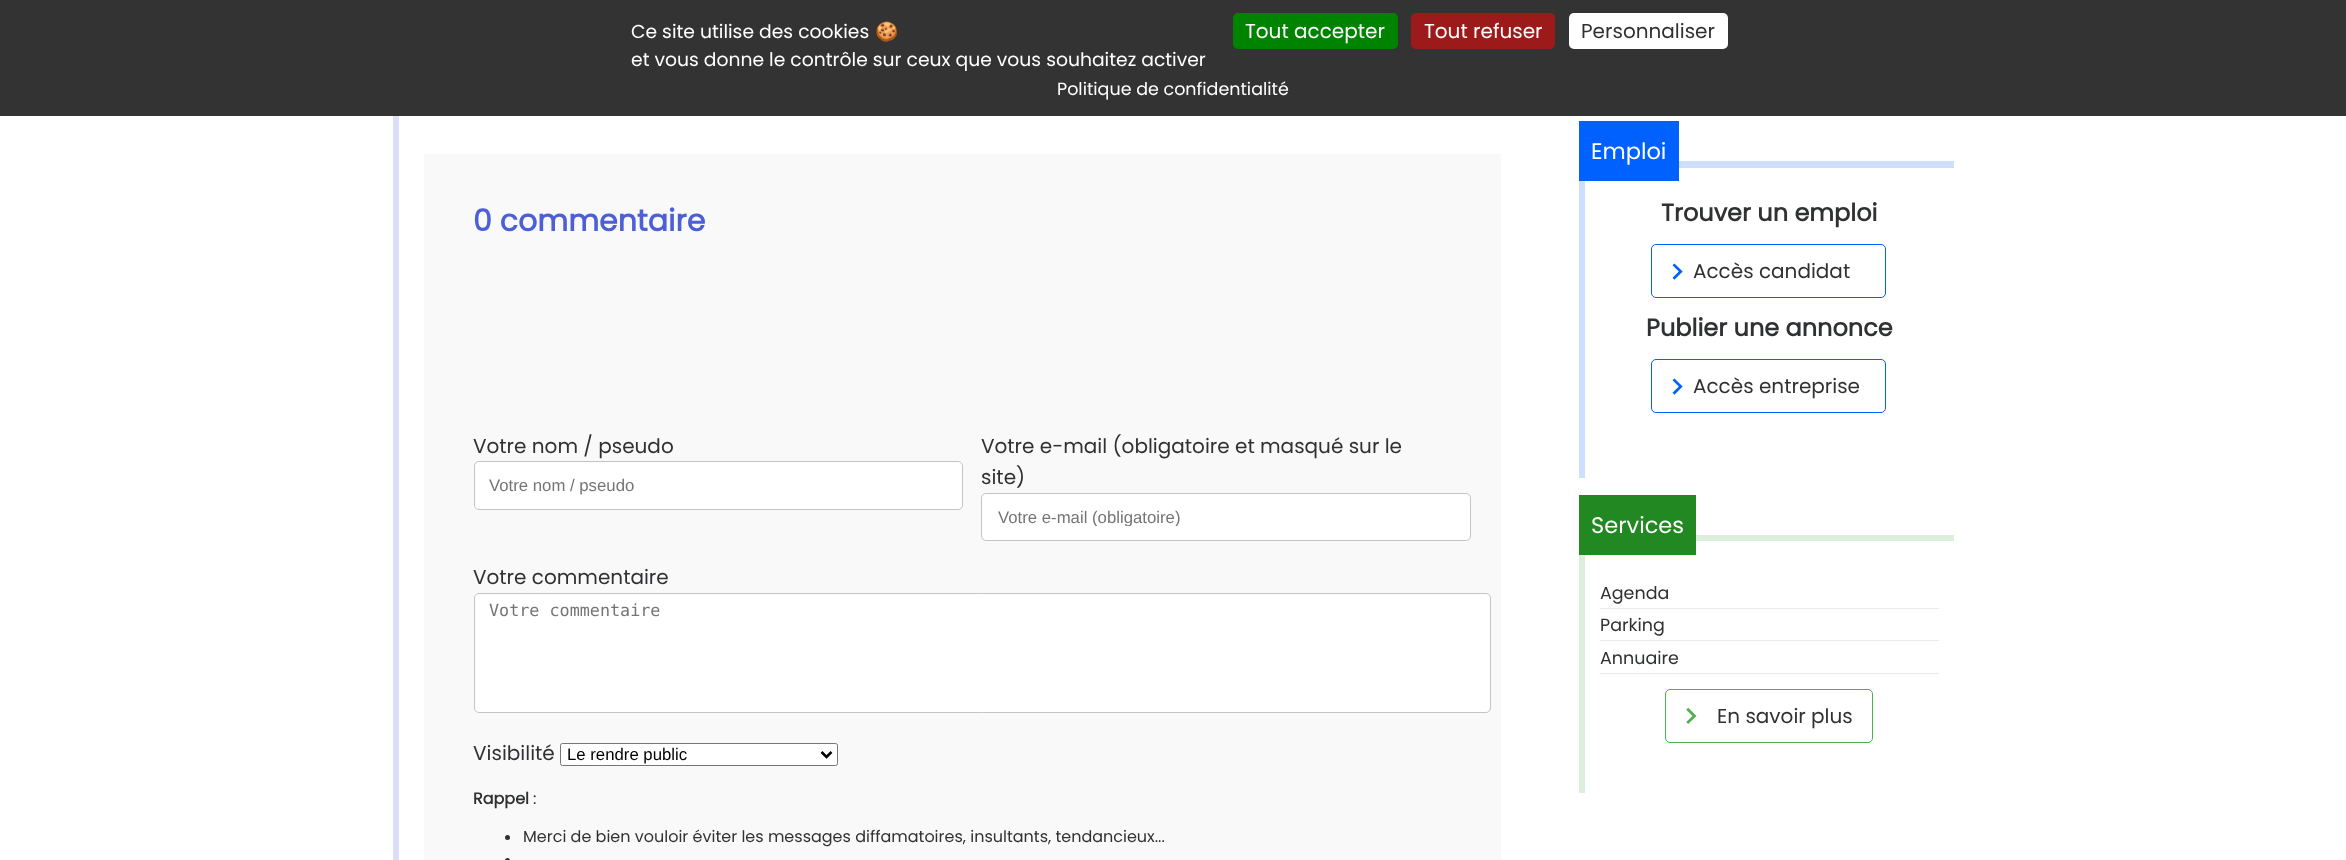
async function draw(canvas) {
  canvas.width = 2346;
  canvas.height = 860;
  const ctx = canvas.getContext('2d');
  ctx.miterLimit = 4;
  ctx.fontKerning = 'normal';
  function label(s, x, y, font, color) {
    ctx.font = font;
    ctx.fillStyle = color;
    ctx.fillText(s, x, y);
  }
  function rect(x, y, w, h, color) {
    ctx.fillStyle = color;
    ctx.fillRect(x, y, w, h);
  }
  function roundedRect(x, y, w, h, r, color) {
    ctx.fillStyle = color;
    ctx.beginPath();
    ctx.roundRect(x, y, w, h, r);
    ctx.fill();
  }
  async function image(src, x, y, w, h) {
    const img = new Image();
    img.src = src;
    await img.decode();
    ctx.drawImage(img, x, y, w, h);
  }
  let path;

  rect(0, 0, 2346, 860, '#fff');
  rect(0, 0, 2346, 116, '#333');
  label('Ce site utilise des cookies', 631, 38, '18.75px Poppins', '#fff');
  label('🍪', 875, 38, '18.75px Noto Color Emoji', '#fff');
  label('et vous donne le contrôle sur ceux que vous souhaitez activer', 631, 66, '18.75px Poppins', '#fff');
  roundedRect(1233, 13, 165, 36, 5, '#008300');
  label('Tout accepter', 1245, 38, '20px Poppins', '#fff');
  roundedRect(1411, 13, 144, 36, 5, '#9c1a1a');
  label('Tout refuser', 1424, 38, '20px Poppins', '#fff');
  roundedRect(1569, 13, 159, 36, 5, '#fff');
  label('Personnaliser', 1581, 38, '20px Poppins', '#303133');
  label('Politique de confidentialité', 1057, 95, '17.5px Poppins', '#fff');
  rect(393, 116, 6, 744, '#dbdff7');
  rect(424, 154, 1077, 706, '#f9f9f9');
  label('0 commentaire', 473, 231, 'bold 30px Poppins', '#4c5fd7');
  label('Votre nom / pseudo', 473, 453, '20px Poppins', '#303133');
  ctx.fillStyle = '#fff';
  ctx.beginPath();
  ctx.roundRect(474.5, 461.5, 488, 48, 4.5);
  ctx.fill();
  ctx.strokeStyle = '#c4c4c4';
  ctx.stroke();
  label('Votre nom / pseudo', 489, 491, '16.75px Liberation Sans', '#757575');
  label('Votre e-mail (obligatoire et masqué sur le', 981, 453, '20px Poppins', '#303133');
  label('site)', 981, 484, '20px Poppins', '#303133');
  ctx.fillStyle = '#fff';
  ctx.beginPath();
  ctx.roundRect(981.5, 493.5, 489, 47, 4.5);
  ctx.fill();
  ctx.stroke();
  ctx.save();
  ctx.beginPath();
  ctx.rect(998, 508, 470, 18);
  ctx.clip();
  label('Votre e-mail (obligatoire)', 998, 523, '16.75px Liberation Sans', '#757575');
  ctx.restore();
  label('Votre commentaire', 473, 584, '20px Poppins', '#303133');
  ctx.fillStyle = '#fff';
  ctx.beginPath();
  ctx.roundRect(474.5, 593.5, 1016, 119, 4.5);
  ctx.fill();
  ctx.stroke();
  label('Votre commentaire', 489, 616, '16.75px DejaVu Sans Mono', '#757575');
  label('Visibilité', 473, 760, '20px Poppins', '#303133');
  ctx.fillStyle = '#fff';
  ctx.beginPath();
  ctx.roundRect(560.5, 743.5, 277, 22, 2);
  ctx.fill();
  ctx.strokeStyle = '#767676';
  ctx.stroke();
  path = new Path2D('M821.5 752L826.5 757L831.5 752');
  ctx.strokeStyle = '#000';
  ctx.lineWidth = 2.5;
  ctx.stroke(path);
  label('Le rendre public', 567, 760, '16.75px Liberation Sans', '#000');
  label('Rappel', 473, 804, 'bold 16px Poppins', '#303133');
  label(':', 533, 804, '16px Poppins', '#303133');
  ctx.beginPath();
  ctx.arc(507.5, 837.5, 2.5, 0, 2 * Math.PI);
  ctx.fill();
  label('Merci de bien vouloir éviter les messages diffamatoires, insultants, tendancieux...', 523, 842, '16px Poppins', '#303133');
  ctx.beginPath();
  ctx.arc(507.5, 860.5, 2.5, 0, 2 * Math.PI);
  ctx.fill();
  rect(1679, 161, 275, 7, '#ccdfff');
  rect(1579, 181, 6, 297, '#ccdfff');
  rect(1579, 121, 100, 60, '#0061ff');
  label('Emploi', 1591, 159, '22.5px Poppins', '#fff');
  label('Trouver un emploi', 1661, 221, 'bold 24px Poppins', '#303133');
  ctx.beginPath();
  ctx.roundRect(1651.5, 244.5, 234, 53, 4.5);
  ctx.strokeStyle = '#0061ff';
  ctx.lineWidth = 1;
  ctx.stroke();
  await image('assets/img1.png', 1672, 263, 11, 17);
  label('Accès candidat', 1693, 278, '20px Poppins', '#303133');
  label('Publier une annonce', 1646, 336, 'bold 24px Poppins', '#303133');
  ctx.beginPath();
  ctx.roundRect(1651.5, 359.5, 234, 53, 4.5);
  ctx.stroke();
  await image('assets/img1.png', 1672, 378, 11, 17);
  label('Accès entreprise', 1693, 393, '20px Poppins', '#303133');
  rect(1696, 535, 258, 6, '#dbefdc');
  rect(1579, 555, 6, 238, '#dbefdc');
  rect(1579, 495, 117, 60, '#282');
  label('Services', 1591, 533, '22.5px Poppins', '#fff');
  rect(1600, 608, 339, 1, '#ebebeb');
  label('Agenda', 1600, 599, '17.5px Poppins', '#303133');
  rect(1600, 640, 339, 1, '#ebebeb');
  label('Parking', 1600, 631, '17.5px Poppins', '#303133');
  rect(1600, 673, 339, 1, '#ebebeb');
  label('Annuaire', 1600, 664, '17.5px Poppins', '#303133');
  ctx.beginPath();
  ctx.roundRect(1665.5, 689.5, 207, 53, 4.5);
  ctx.strokeStyle = '#4caf50';
  ctx.stroke();
  await image('assets/img2.png', 1686, 707, 11, 17);
  label('En savoir plus', 1717, 723, '20px Poppins', '#303133');
}

draw(document.querySelector('canvas'));
